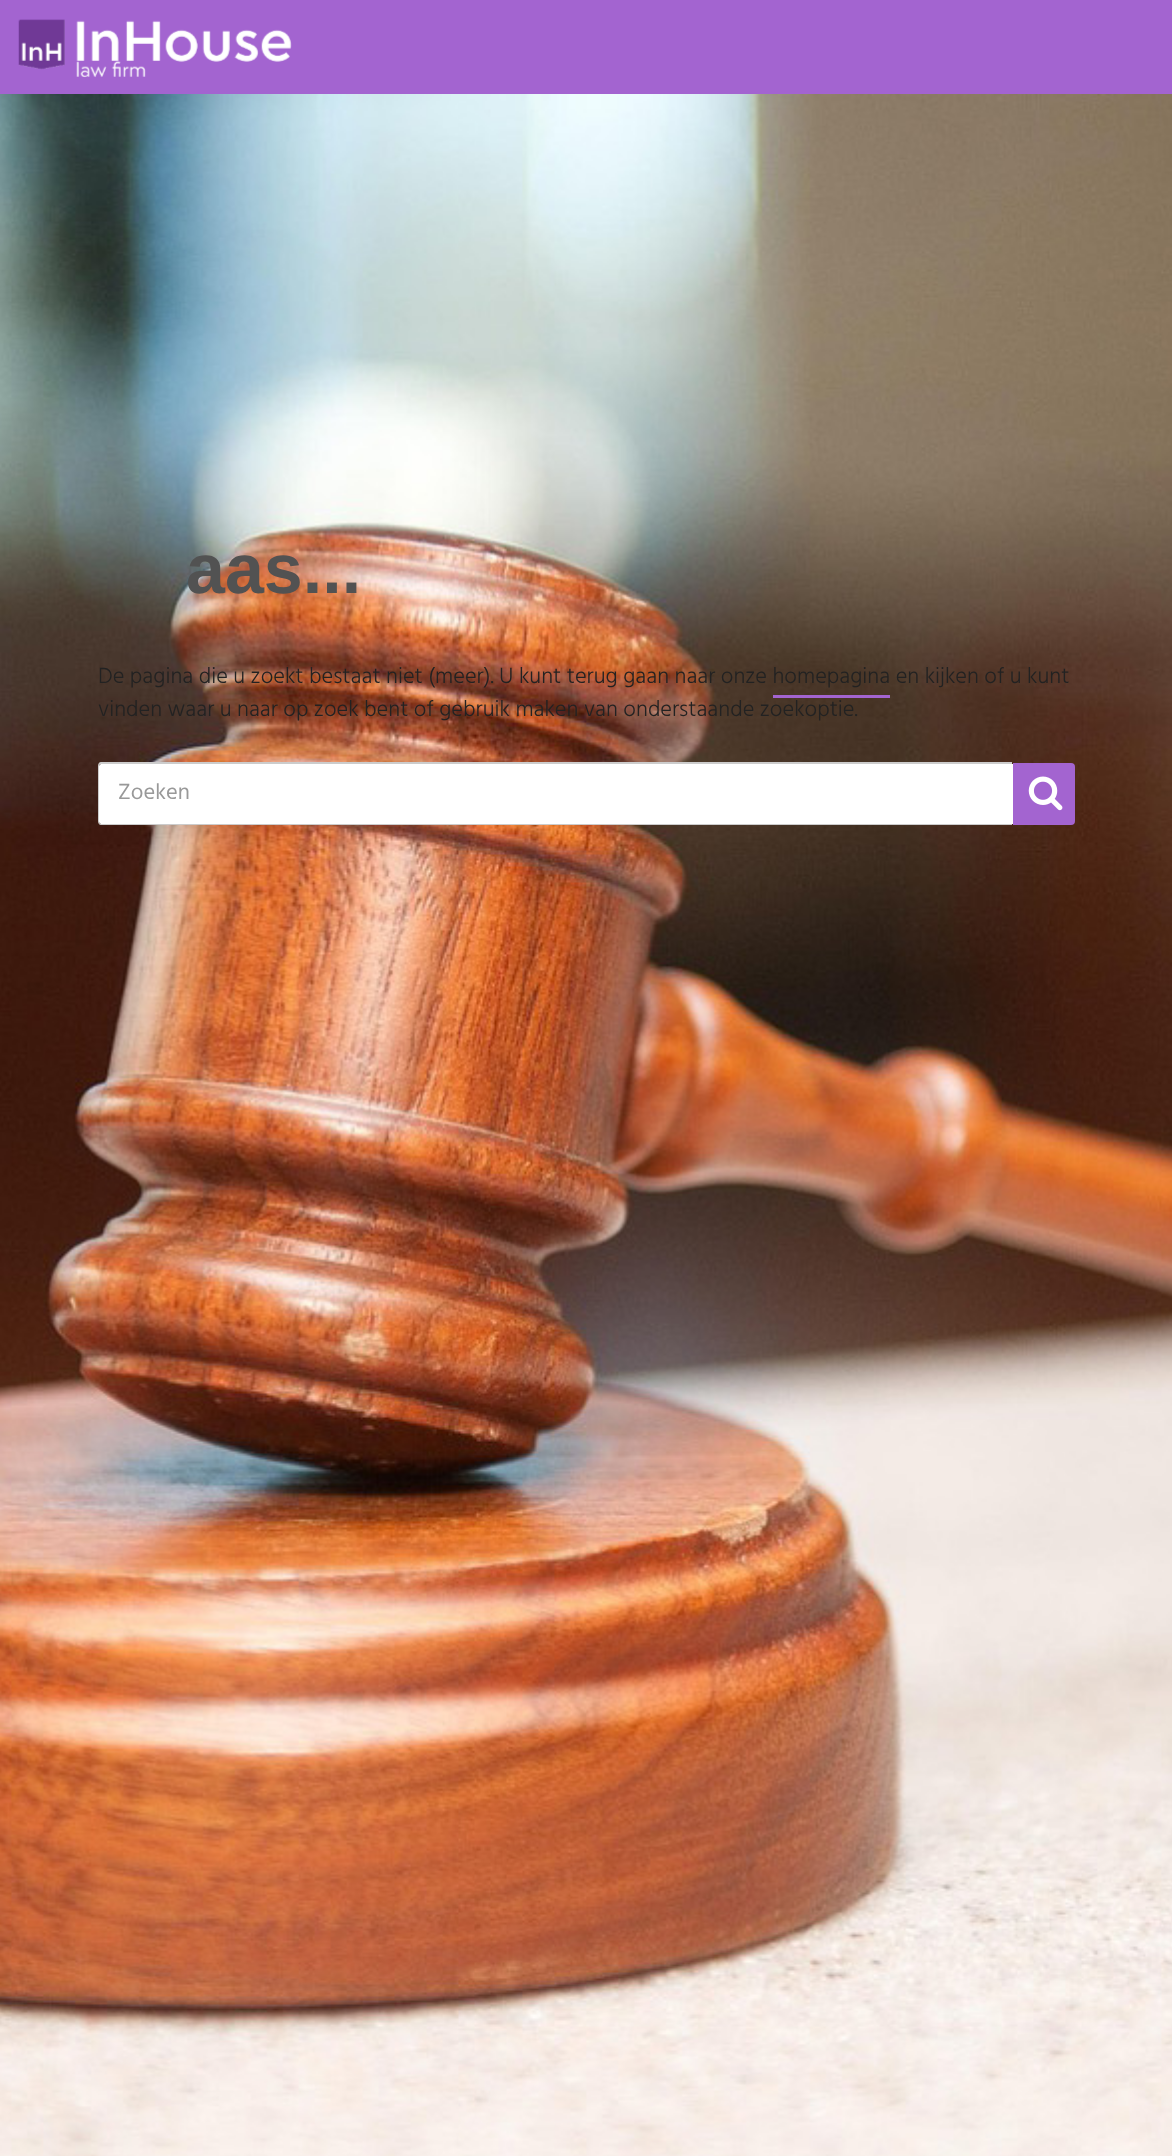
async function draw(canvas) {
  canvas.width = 1172;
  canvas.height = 2156;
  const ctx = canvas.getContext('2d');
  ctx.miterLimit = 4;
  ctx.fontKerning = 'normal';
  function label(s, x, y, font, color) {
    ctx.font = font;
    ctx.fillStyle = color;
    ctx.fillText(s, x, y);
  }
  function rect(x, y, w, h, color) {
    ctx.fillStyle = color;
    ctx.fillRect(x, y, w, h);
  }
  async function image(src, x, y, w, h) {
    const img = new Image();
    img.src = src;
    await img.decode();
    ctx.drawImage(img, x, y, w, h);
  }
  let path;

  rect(0, 0, 1172, 2156, '#fff');
  rect(0, 0, 1172, 94, '#a364d0');
  await image('assets/img1.png', 18, 19, 274, 59);
  await image('assets/img2.png', 0, 94, 1172, 2062);
  label('aas...', 186, 593, 'bold 70px Liberation Sans', '#525252');
  label('De pagina die u zoekt bestaat niet (meer). U kunt terug gaan naar onze homepagina en kijken of u kunt', 98, 683, '300 22.5px Hind', '#222');
  rect(773, 695, 117, 3, '#a364d0');
  label('vinden waar u naar op zoek bent of gebruik maken van onderstaande zoekoptie.', 98, 716, '300 22.5px Hind', '#222');
  ctx.fillStyle = '#fff';
  ctx.beginPath();
  ctx.roundRect(99, 764, 914, 60, [2.5, 0, 0, 2.5]);
  ctx.fill();
  ctx.fillStyle = '#ccc';
  path = new Path2D('M101 762H1012V825H101C99 825 98 823 98 821V766C98 764 99 762 101 762ZM101 764H1012V824H101C100 824 99 823 99 821V766C99 765 100 764 101 764Z');
  ctx.fill(path, 'evenodd');
  label('Zoeken', 118, 799, '22.5px Hind', '#999');
  ctx.fillStyle = '#a364d0';
  ctx.beginPath();
  ctx.roundRect(1013, 763, 62, 62, [0, 4, 4, 0]);
  ctx.fill();
  await image('assets/img3.png', 1028, 776, 35, 35);
}

draw(document.querySelector('canvas'));
